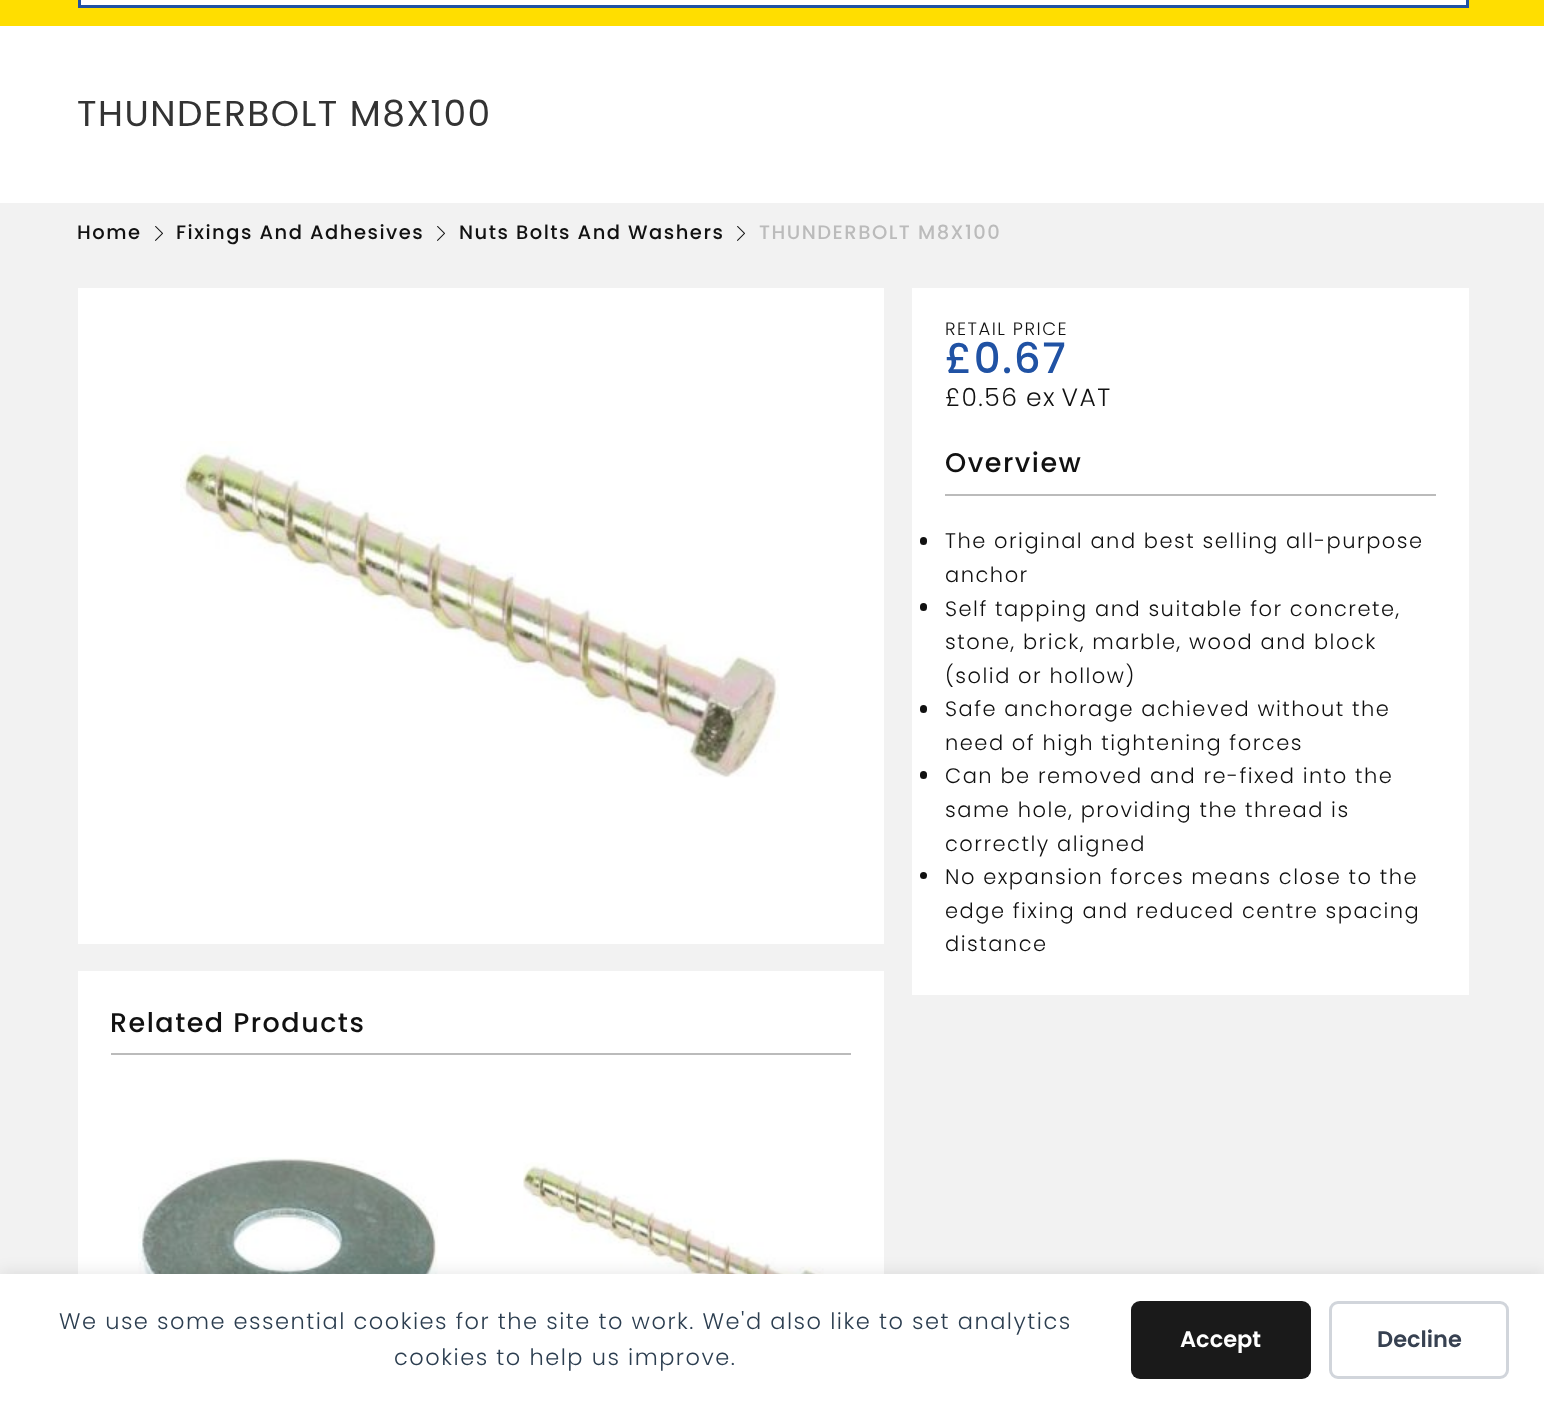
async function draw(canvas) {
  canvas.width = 1544;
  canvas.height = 1405;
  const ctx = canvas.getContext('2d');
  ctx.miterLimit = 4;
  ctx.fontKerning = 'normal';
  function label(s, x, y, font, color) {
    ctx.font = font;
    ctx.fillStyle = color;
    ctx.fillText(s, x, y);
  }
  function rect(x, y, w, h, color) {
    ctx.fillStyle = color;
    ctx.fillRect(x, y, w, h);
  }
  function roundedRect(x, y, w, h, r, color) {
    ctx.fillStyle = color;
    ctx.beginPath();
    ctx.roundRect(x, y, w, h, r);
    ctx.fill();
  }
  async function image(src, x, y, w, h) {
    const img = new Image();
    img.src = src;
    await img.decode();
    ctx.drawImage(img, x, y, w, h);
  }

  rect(0, 0, 1544, 1405, '#f2f2f2');
  rect(0, 0, 1544, 26, '#ffde00');
  ctx.fillStyle = '#fff';
  ctx.beginPath();
  ctx.rect(79.5, -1.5, 1388, 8);
  ctx.fill();
  ctx.strokeStyle = '#2052a4';
  ctx.lineWidth = 3;
  ctx.stroke();
  rect(0, 26, 1544, 177, '#fff');
  ctx.letterSpacing = '1.5px';
  label('THUNDERBOLT M8X100', 77, 126, '36px Poppins', '#333');
  label('Home', 77, 239, '500 19.5px Poppins', '#111');
  await image('assets/img1.png', 155, 226, 8, 15);
  label('Fixings And Adhesives', 176, 239, '500 19.5px Poppins', '#111');
  await image('assets/img1.png', 437, 226, 8, 15);
  label('Nuts Bolts And Washers', 459, 239, '500 19.5px Poppins', '#111');
  await image('assets/img1.png', 737, 226, 8, 15);
  label('THUNDERBOLT M8X100', 759, 239, '500 19.5px Poppins', '#bbb');
  rect(78, 288, 806, 656, '#fff');
  await image('assets/img2.png', 180, 441, 600, 337);
  rect(912, 288, 557, 707, '#fff');
  label('RETAIL PRICE', 945, 335, '300 18px Poppins', '#111');
  label('£0.67', 945, 373, '500 42px Poppins', '#2052a4');
  label('£0.56', 945, 406, '300 25px Poppins', '#111');
  ctx.wordSpacing = '-3px';
  label('ex VAT', 1026, 406, '300 25px Poppins', '#111');
  rect(945, 494, 491, 2, '#bbb');
  ctx.wordSpacing = '0px';
  label('Overview', 945, 472, '500 27px Poppins', '#111');
  roundedRect(920, 537, 7, 8, 3.5, '#111');
  label('The original and best selling all-purpose', 945, 548, '300 21px Poppins', '#111');
  label('anchor', 945, 582, '300 21px Poppins', '#111');
  roundedRect(920, 603, 7, 8, 3.5, '#111');
  label('Self tapping and suitable for concrete,', 945, 616, '300 21px Poppins', '#111');
  label('stone, brick, marble, wood and block', 945, 649, '300 21px Poppins', '#111');
  label('(solid or hollow)', 945, 683, '300 21px Poppins', '#111');
  roundedRect(920, 705, 7, 8, 3.5, '#111');
  label('Safe anchorage achieved without the', 945, 716, '300 21px Poppins', '#111');
  label('need of high tightening forces', 945, 750, '300 21px Poppins', '#111');
  roundedRect(920, 771, 7, 8, 3.5, '#111');
  label('Can be removed and re-fixed into the', 945, 783, '300 21px Poppins', '#111');
  label('same hole, providing the thread is', 945, 817, '300 21px Poppins', '#111');
  label('correctly aligned', 945, 851, '300 21px Poppins', '#111');
  ctx.beginPath();
  ctx.arc(923.5, 875.5, 3.5, 0, 2 * Math.PI);
  ctx.fill();
  label('No expansion forces means close to the', 945, 884, '300 21px Poppins', '#111');
  label('edge fixing and reduced centre spacing', 945, 918, '300 21px Poppins', '#111');
  label('distance', 945, 951, '300 21px Poppins', '#111');
  rect(78, 971, 806, 303, '#fff');
  rect(111, 1053, 740, 2, '#bbb');
  label('Related Products', 110, 1032, '500 27px Poppins', '#111');
  await image('assets/img3.png', 138, 1157, 300, 117);
  await image('assets/img4.png', 523, 1162, 301, 112);
  ctx.fillStyle = '#00000014';
  ctx.filter = 'blur(7.5px)';
  ctx.beginPath();
  ctx.rect(0, 1271, 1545, 132);
  ctx.fill();
  ctx.filter = 'none';
  rect(0, 1274, 1544, 131, '#fff');
  label('We use some essential cookies for the site to work. We\'d also like to set analytics', 59, 1329, '300 22.5px Poppins', '#2c3e50');
  label('cookies to help us improve.', 394, 1365, '300 22.5px Poppins', '#2c3e50');
  roundedRect(1131, 1301, 180, 78, 9, '#1a1a1a');
  ctx.letterSpacing = '0px';
  label('Accept', 1180, 1347, '600 22.5px Poppins', '#fff');
  ctx.beginPath();
  ctx.roundRect(1330.5, 1302.5, 177, 75, 7.5);
  ctx.strokeStyle = '#d1d5db';
  ctx.stroke();
  label('Decline', 1377, 1347, '600 22.5px Poppins', '#374151');
}

draw(document.querySelector('canvas'));
